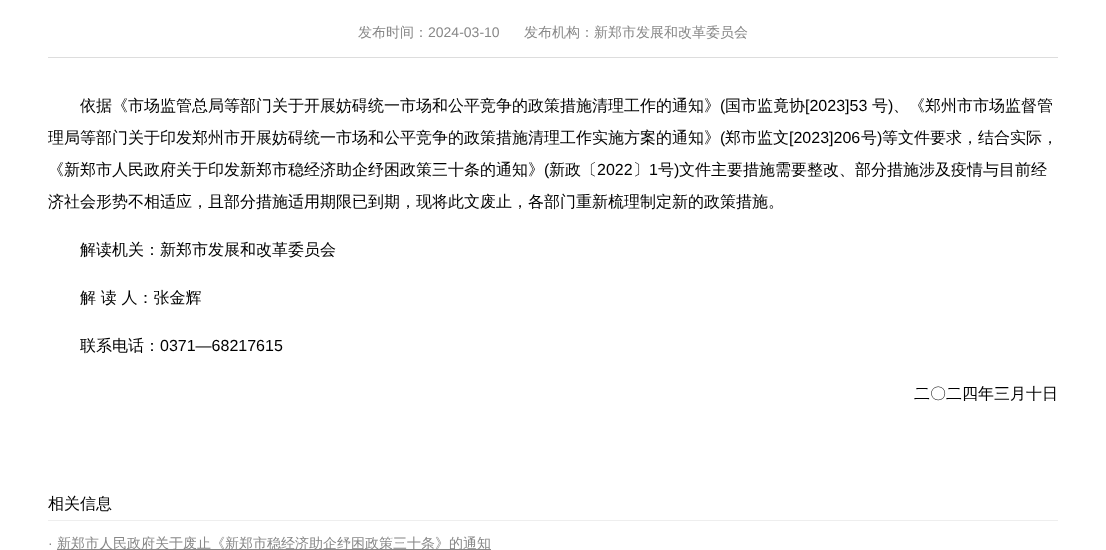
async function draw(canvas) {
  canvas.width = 1106;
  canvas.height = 550;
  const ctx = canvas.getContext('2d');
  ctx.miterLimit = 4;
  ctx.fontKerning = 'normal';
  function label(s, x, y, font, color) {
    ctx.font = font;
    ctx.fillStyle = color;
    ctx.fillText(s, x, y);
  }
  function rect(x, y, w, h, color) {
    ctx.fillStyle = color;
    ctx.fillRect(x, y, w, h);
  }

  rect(0, 0, 1106, 550, '#fff');
  label('发布时间：', 358, 37, '500 14px WenQuanYi Zen Hei', '#888');
  label('2024-03-10', 428, 37, '14px Liberation Sans', '#888');
  label('发布机构：新郑市发展和改革委员会', 524, 37, '500 14px WenQuanYi Zen Hei', '#888');
  rect(48, 57, 1010, 1, '#ddd');
  label('依据《市场监管总局等部门关于开展妨碍统一市场和公平竞争的政策措施清理工作的通知》', 80, 111, '500 16px WenQuanYi Zen Hei', '#000');
  label('(', 720, 111, '16px Liberation Sans', '#000');
  label('国市监竟协', 725, 111, '500 16px WenQuanYi Zen Hei', '#000');
  label('[2023]53', 805, 111, '16px Liberation Sans', '#000');
  label('号', 872, 111, '500 16px WenQuanYi Zen Hei', '#000');
  label(')', 888, 111, '16px Liberation Sans', '#000');
  label('、《郑州市市场监督管', 893, 111, '500 16px WenQuanYi Zen Hei', '#000');
  label('理局等部门关于印发郑州市开展妨碍统一市场和公平竞争的政策措施清理工作实施方案的通知》', 48, 143, '500 16px WenQuanYi Zen Hei', '#000');
  label('(', 720, 143, '16px Liberation Sans', '#000');
  label('郑市监文', 725, 143, '500 16px WenQuanYi Zen Hei', '#000');
  label('[2023]206', 789, 143, '16px Liberation Sans', '#000');
  label('号', 861, 143, '500 16px WenQuanYi Zen Hei', '#000');
  label(')', 877, 143, '16px Liberation Sans', '#000');
  label('等文件要求，结合实际，', 882, 143, '500 16px WenQuanYi Zen Hei', '#000');
  label('《新郑市人民政府关于印发新郑市稳经济助企纾困政策三十条的通知》', 48, 175, '500 16px WenQuanYi Zen Hei', '#000');
  label('(', 544, 175, '16px Liberation Sans', '#000');
  label('新政〔', 549, 175, '500 16px WenQuanYi Zen Hei', '#000');
  label('2022', 597, 175, '16px Liberation Sans', '#000');
  label('〕', 633, 175, '500 16px WenQuanYi Zen Hei', '#000');
  label('1', 649, 175, '16px Liberation Sans', '#000');
  label('号', 658, 175, '500 16px WenQuanYi Zen Hei', '#000');
  label(')', 674, 175, '16px Liberation Sans', '#000');
  label('文件主要措施需要整改、部分措施涉及疫情与目前经', 679, 175, '500 16px WenQuanYi Zen Hei', '#000');
  label('济社会形势不相适应，且部分措施适用期限已到期，现将此文废止，各部门重新梳理制定新的政策措施。', 48, 207, '500 16px WenQuanYi Zen Hei', '#000');
  label('解读机关：新郑市发展和改革委员会', 80, 255, '500 16px WenQuanYi Zen Hei', '#000');
  label('解 读 人：张金辉', 80, 303, '500 16px WenQuanYi Zen Hei', '#000');
  label('联系电话：', 80, 351, '500 16px WenQuanYi Zen Hei', '#000');
  label('0371—68217615', 160, 351, '16px Liberation Sans', '#000');
  label('二〇二四年三月十日', 914, 399, '500 16px WenQuanYi Zen Hei', '#000');
  rect(48, 520, 1010, 1, '#eee');
  label('相关信息', 48, 509, '500 16px WenQuanYi Zen Hei', '#000');
  label('·', 48, 548, '14px Liberation Sans', '#888');
  rect(57, 549, 434, 1, '#888');
  label('新郑市人民政府关于废止《新郑市稳经济助企纾困政策三十条》的通知', 57, 548, '500 14px WenQuanYi Zen Hei', '#888');
}

draw(document.querySelector('canvas'));
